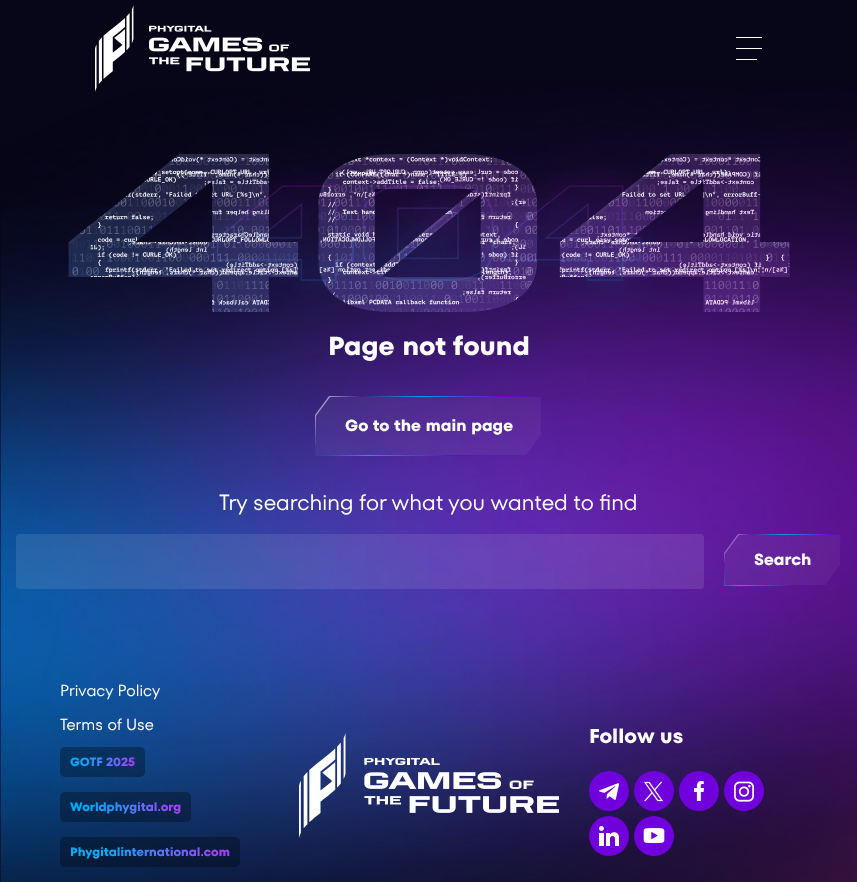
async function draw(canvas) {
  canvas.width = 857;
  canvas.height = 882;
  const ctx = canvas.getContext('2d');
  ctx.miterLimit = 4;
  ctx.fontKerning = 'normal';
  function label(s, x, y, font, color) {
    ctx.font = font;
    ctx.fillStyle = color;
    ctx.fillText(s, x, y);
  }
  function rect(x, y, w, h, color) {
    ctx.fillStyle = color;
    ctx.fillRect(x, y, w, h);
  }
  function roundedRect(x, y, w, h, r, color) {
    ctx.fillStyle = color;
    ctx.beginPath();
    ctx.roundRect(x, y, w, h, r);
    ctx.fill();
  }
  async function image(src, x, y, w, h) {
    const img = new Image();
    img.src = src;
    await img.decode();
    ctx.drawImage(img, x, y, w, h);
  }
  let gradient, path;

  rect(0, 0, 857, 882, '#070618');
  await image('assets/img2.png', 0, 88, 857, 794);
  await image('assets/img1.png', 95, 5, 215, 87);
  rect(736, 37, 26, 1, '#fff');
  rect(736, 48, 26, 1, '#fff');
  rect(736, 59, 21, 1, '#fff');
  await image('assets/img3.png', 68, 154, 722, 158);
  label('Page not found', 328, 355, 'bold 26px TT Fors', '#fff');
  gradient = ctx.createLinearGradient(340, 352, 510, 494);
  gradient.addColorStop(0, '#fff');
  gradient.addColorStop(0.2, '#ffffff00');
  gradient.addColorStop(0.2, '#01a0ea00');
  gradient.addColorStop(0.4, '#01a0ea');
  gradient.addColorStop(0.69, '#7000dc');
  gradient.addColorStop(0.85, '#7000dc00');
  ctx.fillStyle = gradient;
  path = new Path2D('M542 436V396H329L315 415V456H527ZM541 435V397H330L316 416V455H527Z');
  ctx.fill(path, 'evenodd');
  ctx.fillStyle = '#ffffff0d';
  path = new Path2D('M541 435V397H330L316 416V455H526Z');
  ctx.fill(path);
  label('Go to the main page', 345, 431, 'bold 16px TT Fors', '#fff');
  label('Try searching for what you wanted to find', 219, 510, '22px TT Fors', '#fff');
  roundedRect(16, 534, 688, 55, 4, '#ffffff1a');
  gradient = ctx.createLinearGradient(731, 517, 830, 600);
  gradient.addColorStop(0, '#fff');
  gradient.addColorStop(0.2, '#ffffff00');
  gradient.addColorStop(0.2, '#01a0ea00');
  gradient.addColorStop(0.4, '#01a0ea');
  gradient.addColorStop(0.69, '#7000dc');
  gradient.addColorStop(0.85, '#7000dc00');
  ctx.fillStyle = gradient;
  path = new Path2D('M841 534H738L724 553V586H826L841 566ZM840 565V535H739L725 554V585H826Z');
  ctx.fill(path, 'evenodd');
  ctx.fillStyle = '#ffffff0d';
  path = new Path2D('M840 535H739L725 554V585H825L840 565Z');
  ctx.fill(path);
  label('Search', 754, 565, 'bold 16px TT Fors', '#fff');
  label('Privacy Policy', 60, 696, '16px TT Fors', '#fff');
  label('Terms of Use', 60, 730, '16px TT Fors', '#fff');
  roundedRect(60, 747, 85, 30, 5, '#0000004d');
  ctx.font = 'bold 12px TT Fors';
  gradient = ctx.createLinearGradient(60, 762, 145, 762);
  gradient.addColorStop(0.25, '#00aeff');
  gradient.addColorStop(0.85, '#a443ff');
  ctx.fillStyle = gradient;
  ctx.fillText('GOTF 2025', 70, 766);
  roundedRect(60, 792, 131, 30, 5, '#0000004d');
  gradient = ctx.createLinearGradient(60, 807, 191, 807);
  gradient.addColorStop(0.25, '#00aeff');
  gradient.addColorStop(0.85, '#a443ff');
  ctx.fillStyle = gradient;
  ctx.fillText('Worldphygital.org', 70, 811);
  roundedRect(60, 837, 180, 30, 5, '#0000004d');
  gradient = ctx.createLinearGradient(60, 852, 240, 852);
  gradient.addColorStop(0.25, '#00aeff');
  gradient.addColorStop(0.85, '#a443ff');
  ctx.fillStyle = gradient;
  ctx.fillText('Phygitalinternational.com', 70, 856);
  await image('assets/img4.png', 299, 733, 260, 105);
  label('Follow us', 589, 743, 'bold 20px TT Fors', '#fff');
  ctx.fillStyle = '#7000dc';
  ctx.beginPath();
  ctx.arc(609, 791, 20, 0, 2 * Math.PI);
  ctx.fill();
  await image('assets/img5.png', 599, 783, 20, 17);
  ctx.beginPath();
  ctx.arc(654, 791, 20, 0, 2 * Math.PI);
  ctx.fill();
  await image('assets/img6.png', 644, 781, 19, 21);
  ctx.beginPath();
  ctx.arc(699, 791, 20, 0, 2 * Math.PI);
  ctx.fill();
  await image('assets/img7.png', 694, 781, 10, 20);
  ctx.beginPath();
  ctx.arc(744, 791, 20, 0, 2 * Math.PI);
  ctx.fill();
  await image('assets/img8.png', 734, 781, 20, 21);
  ctx.beginPath();
  ctx.arc(609, 836, 20, 0, 2 * Math.PI);
  ctx.fill();
  await image('assets/img9.png', 599, 826, 20, 20);
  ctx.beginPath();
  ctx.arc(654, 836, 20, 0, 2 * Math.PI);
  ctx.fill();
  await image('assets/img10.png', 643, 828, 22, 16);
}

draw(document.querySelector('canvas'));
